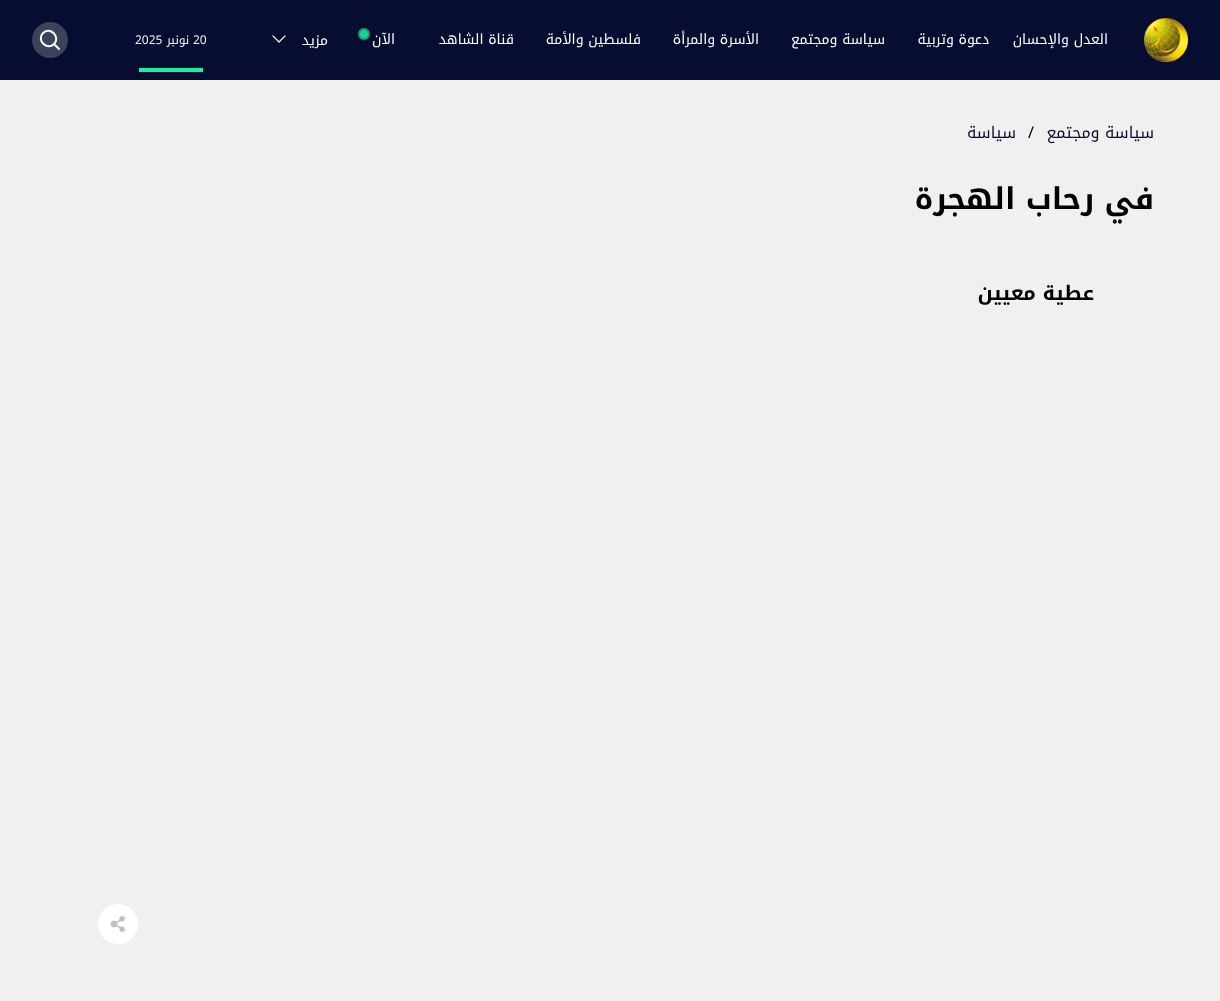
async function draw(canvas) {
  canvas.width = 1220;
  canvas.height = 1001;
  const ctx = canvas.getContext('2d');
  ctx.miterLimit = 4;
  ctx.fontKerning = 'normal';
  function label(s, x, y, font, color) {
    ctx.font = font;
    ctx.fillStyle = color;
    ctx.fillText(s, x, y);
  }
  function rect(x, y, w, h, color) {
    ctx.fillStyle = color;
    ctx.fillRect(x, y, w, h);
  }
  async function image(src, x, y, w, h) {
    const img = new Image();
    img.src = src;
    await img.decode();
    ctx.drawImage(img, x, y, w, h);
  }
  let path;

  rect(0, 0, 1220, 1001, '#f0f0f0');
  rect(0, 0, 1220, 80, '#070d30');
  await image('assets/img1.png', 1144, 18, 44, 44);
  ctx.direction = 'rtl';
  label('العدل والإحسان', 1108, 44, '14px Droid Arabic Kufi', '#fff');
  label('دعوة وتربية', 989, 44, '14px Droid Arabic Kufi', '#fff');
  label('سياسة ومجتمع', 885, 44, '14px Droid Arabic Kufi', '#fff');
  label('الأسرة والمرأة', 759, 44, '14px Droid Arabic Kufi', '#fff');
  label('فلسطين والأمة', 641, 44, '14px Droid Arabic Kufi', '#fff');
  label('قناة الشاهد', 514, 44, '14px Droid Arabic Kufi', '#fff');
  ctx.fillStyle = '#17d390';
  ctx.beginPath();
  ctx.arc(364, 34, 4, 0, 2 * Math.PI);
  ctx.fill();
  ctx.fillStyle = '#17d390bf';
  ctx.beginPath();
  ctx.arc(364, 34, 6, 0, 2 * Math.PI);
  ctx.fill();
  label('الآن', 395, 44, '14px Droid Arabic Kufi', '#fff');
  label('مزيد', 328, 45, '14px Droid Arabic Kufi', '#fff');
  path = new Path2D('M285 36L279 42L273 36');
  ctx.strokeStyle = '#fff';
  ctx.lineWidth = 1.2;
  ctx.lineCap = 'round';
  ctx.lineJoin = 'round';
  ctx.stroke(path);
  ctx.direction = 'ltr';
  label('20', 193, 44, '12px Noto Sans', '#f9eeee');
  ctx.direction = 'rtl';
  label('نونبر', 189, 44, '12px Droid Arabic Kufi', '#f9eeee');
  ctx.direction = 'ltr';
  label('2025', 135, 44, '12px Noto Sans', '#f9eeee');
  rect(139, 68, 64, 4, '#18f2a4');
  ctx.fillStyle = '#3b425a';
  ctx.beginPath();
  ctx.arc(50, 40, 18, 0, 2 * Math.PI);
  ctx.fill();
  path = new Path2D('M59 49L54 44M54 44C61 37 50 26 43 33C36 40 47 51 54 44Z');
  ctx.lineWidth = 2;
  ctx.stroke(path);
  ctx.direction = 'rtl';
  label('سياسة ومجتمع', 1154, 138, '16px Droid Arabic Kufi', '#070d30');
  ctx.direction = 'ltr';
  label('/', 1028, 138, '16px Noto Sans', '#000');
  ctx.direction = 'rtl';
  label('سياسة', 1016, 138, '16px Droid Arabic Kufi', '#070d30');
  label('في رحاب الهجرة', 1154, 209, 'bold 30px Droid Arabic Kufi', '#000');
  label('عطية معيين', 1094, 300, 'bold 20px Droid Arabic Kufi', '#000');
  ctx.fillStyle = '#fff';
  ctx.beginPath();
  ctx.arc(118, 924, 20, 0, 2 * Math.PI);
  ctx.fill();
  await image('assets/img2.png', 110, 916, 15, 16);
}

draw(document.querySelector('canvas'));
